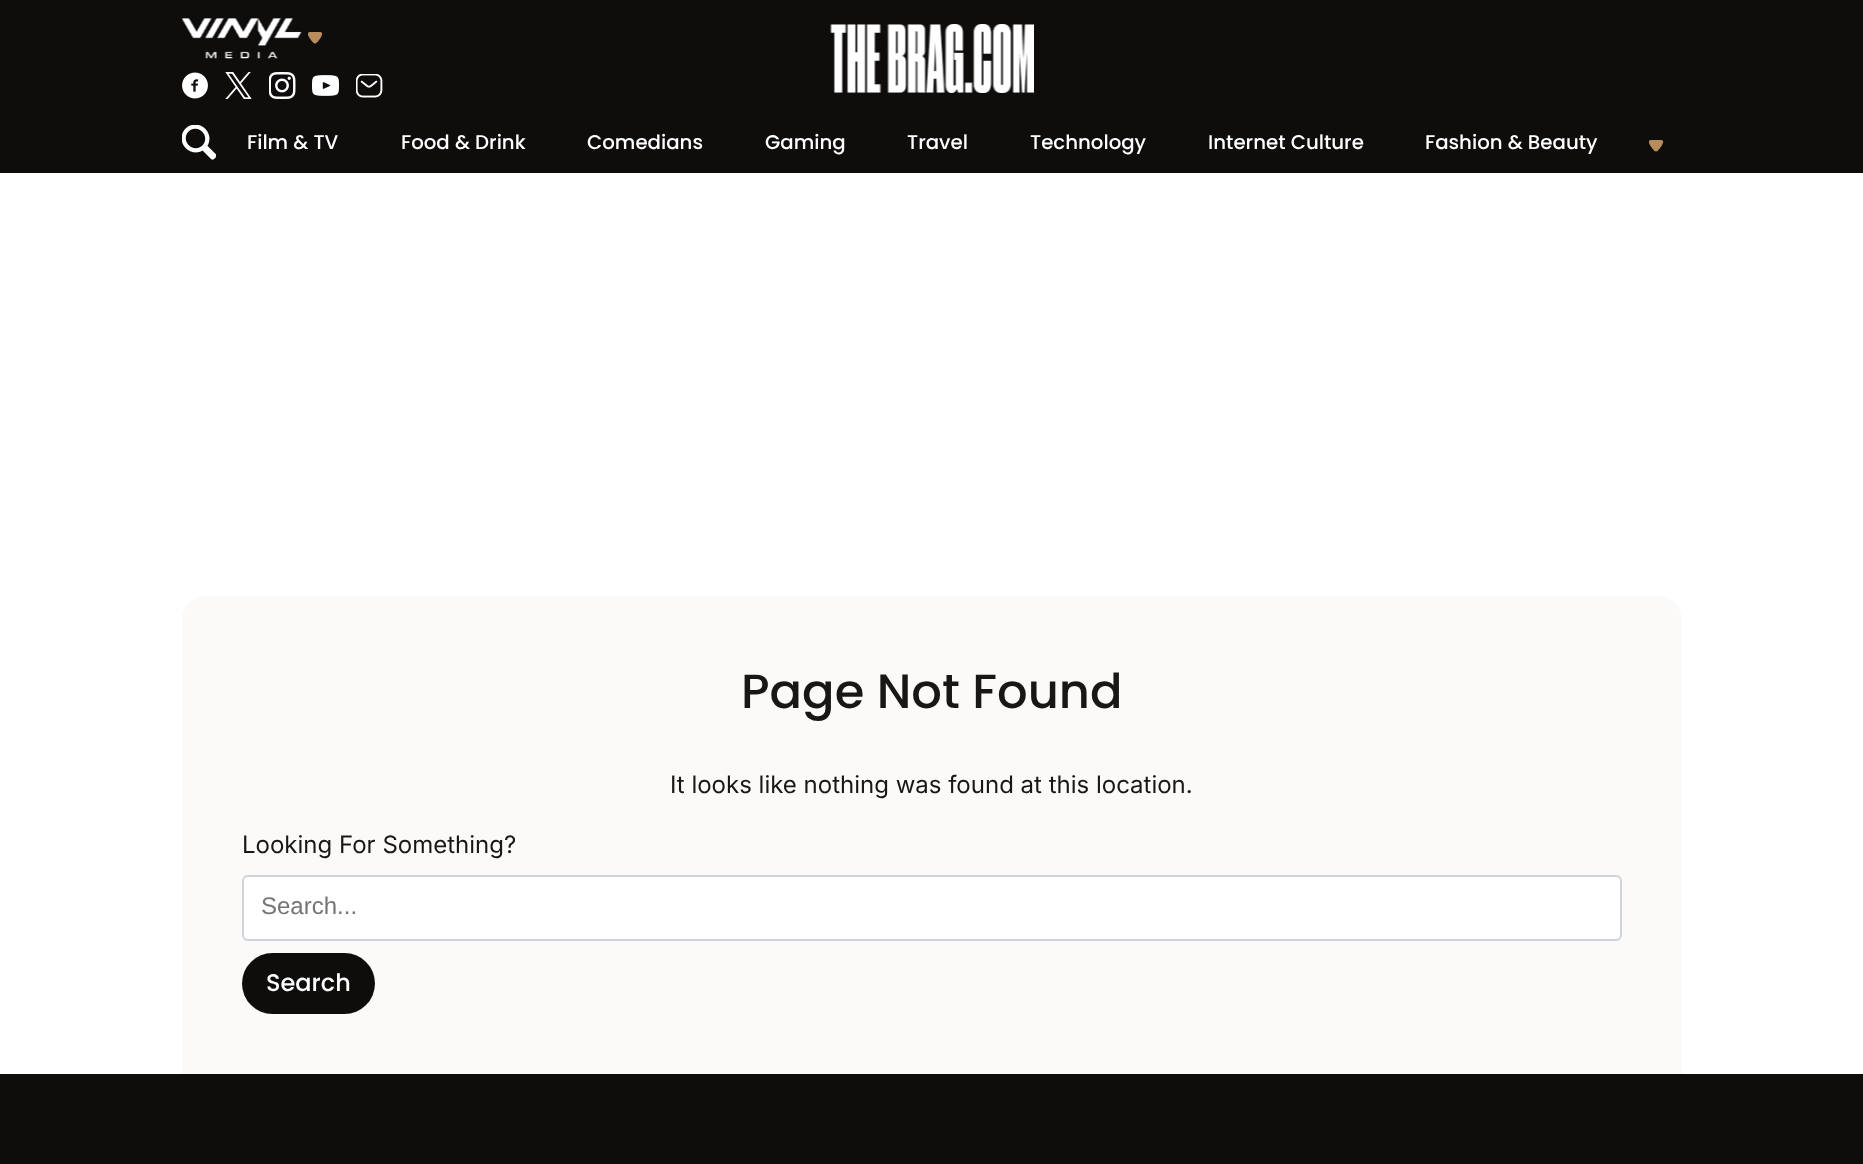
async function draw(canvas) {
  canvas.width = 1863;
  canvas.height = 1164;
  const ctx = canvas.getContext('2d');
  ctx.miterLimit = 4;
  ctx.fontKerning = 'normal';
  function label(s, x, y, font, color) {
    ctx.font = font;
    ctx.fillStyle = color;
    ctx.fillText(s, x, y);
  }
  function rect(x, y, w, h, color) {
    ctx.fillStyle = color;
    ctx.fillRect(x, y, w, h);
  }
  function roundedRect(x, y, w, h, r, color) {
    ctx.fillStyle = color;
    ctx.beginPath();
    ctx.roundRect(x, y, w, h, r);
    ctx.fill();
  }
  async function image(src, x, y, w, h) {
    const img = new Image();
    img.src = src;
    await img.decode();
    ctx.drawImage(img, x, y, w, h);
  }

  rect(0, 0, 1863, 1164, '#fff');
  rect(0, 0, 1863, 173, '#0f0c0c');
  await image('assets/img1.png', 182, 18, 120, 41);
  await image('assets/img2.png', 308, 32, 15, 12);
  await image('assets/img3.png', 182, 72, 26, 27);
  await image('assets/img4.png', 225, 72, 27, 27);
  await image('assets/img5.png', 269, 72, 27, 27);
  await image('assets/img6.png', 312, 75, 27, 21);
  await image('assets/img7.png', 356, 74, 27, 24);
  await image('assets/img8.png', 830, 24, 204, 69);
  await image('assets/img9.png', 182, 125, 34, 35);
  label('Film & TV', 247, 149, '500 19.75px Poppins', '#fff');
  label('Food & Drink', 401, 149, '500 19.75px Poppins', '#fff');
  label('Comedians', 587, 149, '500 19.75px Poppins', '#fff');
  label('Gaming', 765, 149, '500 19.75px Poppins', '#fff');
  label('Travel', 907, 149, '500 19.75px Poppins', '#fff');
  label('Technology', 1030, 149, '500 19.75px Poppins', '#fff');
  label('Internet Culture', 1208, 149, '500 19.75px Poppins', '#fff');
  label('Fashion & Beauty', 1425, 149, '500 19.75px Poppins', '#fff');
  await image('assets/img2.png', 1649, 140, 15, 12);
  ctx.fillStyle = '#fcfaf8';
  ctx.beginPath();
  ctx.roundRect(182, 596, 1500, 478, [24, 24, 0, 0]);
  ctx.fill();
  label('Page Not Found', 741, 708, '500 48px Poppins', '#181715');
  label('It looks like nothing was found at this location.', 670, 793, '24px Inter', '#181715');
  label('Looking For Something?', 242, 853, '24px Inter', '#181715');
  ctx.fillStyle = '#fff';
  ctx.beginPath();
  ctx.roundRect(243, 876, 1378, 64, 5);
  ctx.fill();
  ctx.strokeStyle = '#ced4da';
  ctx.lineWidth = 2;
  ctx.stroke();
  label('Search...', 261, 914, '24px Liberation Sans', '#757575');
  roundedRect(242, 953, 133, 61, 30.5, '#0f0c0c');
  label('Search', 266, 991, '500 24px Poppins', '#fff');
  rect(0, 1074, 1863, 90, '#0f0c0c');
}

draw(document.querySelector('canvas'));
